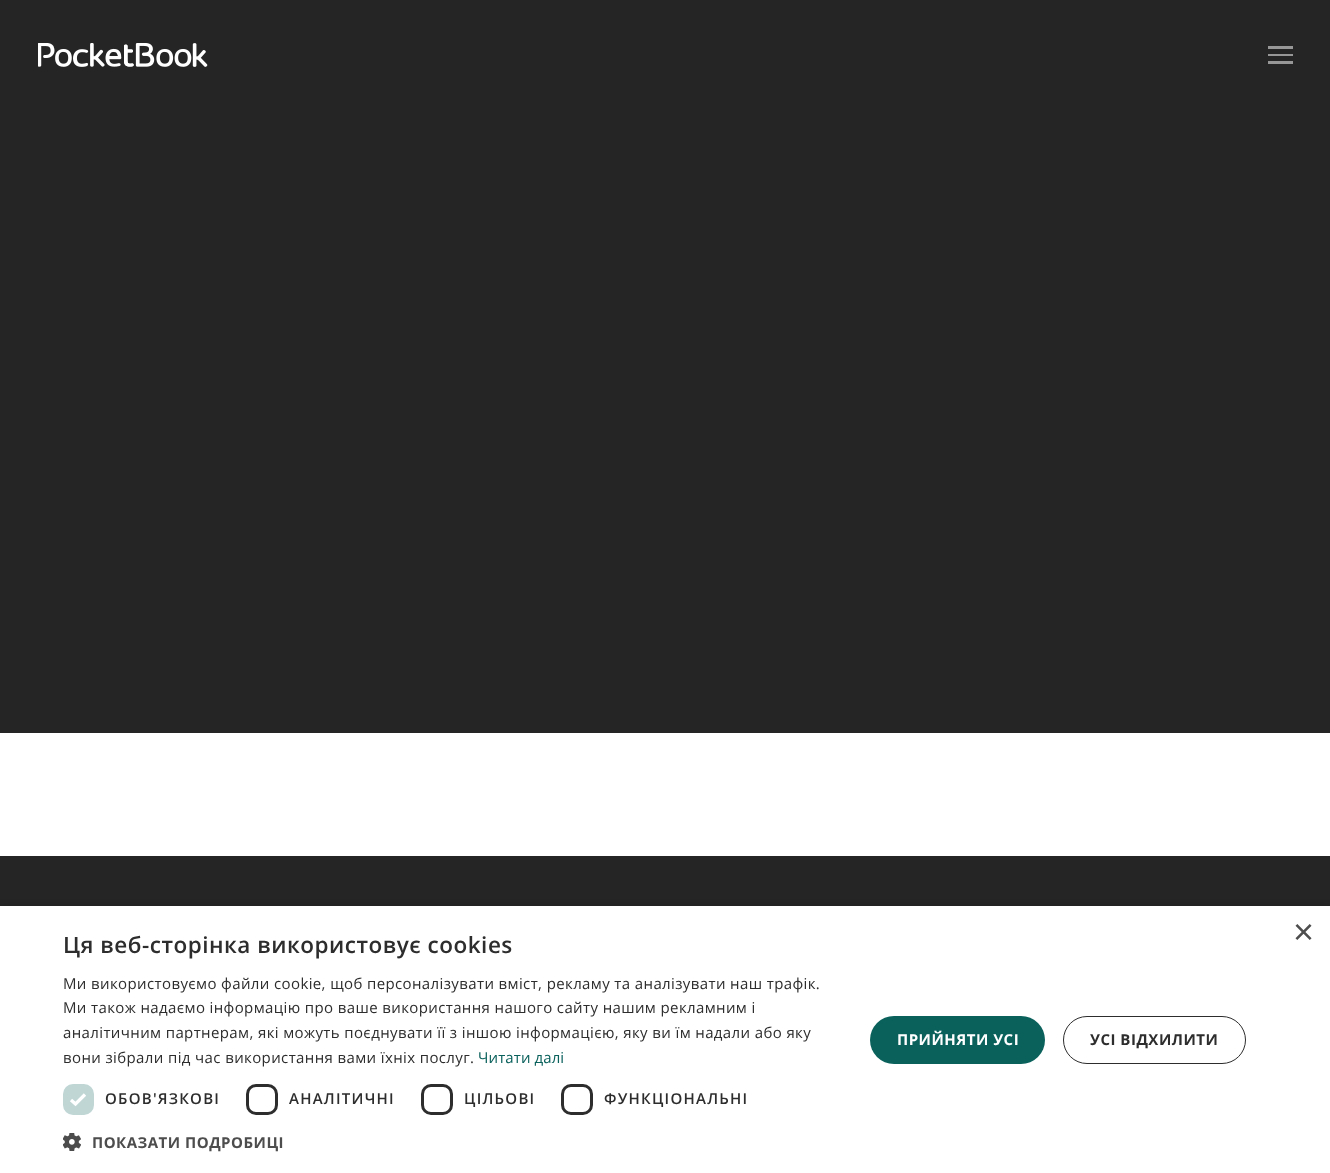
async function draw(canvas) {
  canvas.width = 1330;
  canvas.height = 1173;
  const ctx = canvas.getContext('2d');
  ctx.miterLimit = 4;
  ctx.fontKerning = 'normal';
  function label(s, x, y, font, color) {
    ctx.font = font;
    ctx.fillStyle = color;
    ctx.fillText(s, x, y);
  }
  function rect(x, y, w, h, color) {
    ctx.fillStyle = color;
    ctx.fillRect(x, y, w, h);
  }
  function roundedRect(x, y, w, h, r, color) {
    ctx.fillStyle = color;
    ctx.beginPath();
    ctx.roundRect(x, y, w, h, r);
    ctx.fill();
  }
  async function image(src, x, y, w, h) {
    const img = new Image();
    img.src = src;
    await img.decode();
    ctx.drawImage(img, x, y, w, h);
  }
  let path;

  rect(0, 0, 1330, 1173, '#fff');
  rect(0, 0, 1330, 733, '#252525');
  await image('assets/img1.png', 38, 43, 170, 24);
  rect(1268, 54, 25, 2, '#979797');
  rect(1268, 46, 25, 3, '#979797');
  rect(1268, 61, 25, 3, '#979797');
  rect(0, 856, 1330, 50, '#252525');
  ctx.fillStyle = '#00000059';
  ctx.filter = 'blur(5px)';
  ctx.beginPath();
  ctx.rect(1, 909, 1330, 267);
  ctx.fill();
  ctx.filter = 'none';
  rect(0, 906, 1330, 267, '#fff');
  label('×', 1293, 944, '36px Liberation Sans', '#4d4d4d');
  ctx.letterSpacing = '0.5px';
  label('Ця веб-сторінка використовує cookies', 63, 953, '600 22.5px Open Sans', '#2d2d2d');
  ctx.letterSpacing = '0.38px';
  label('Ми використовуємо файли cookie, щоб персоналізувати вміст, рекламу та аналізувати наш трафік.', 63, 989, '15px Open Sans', '#2d2d2d');
  label('Ми також надаємо інформацію про ваше використання нашого сайту нашим рекламним і', 63, 1013, '15px Open Sans', '#2d2d2d');
  label('аналітичним партнерам, які можуть поєднувати її з іншою інформацією, яку ви їм надали або яку', 63, 1038, '15px Open Sans', '#2d2d2d');
  label('вони зібрали під час використання вами їхніх послуг.', 63, 1063, '15px Open Sans', '#2d2d2d');
  ctx.letterSpacing = '0.1px';
  label('Читати далі', 478, 1063, '15px Open Sans', '#0a615c');
  roundedRect(63, 1084, 31, 31, 10, '#bfd6d5');
  path = new Path2D('M71 1100L75.5 1104L85 1094.5');
  ctx.strokeStyle = '#fff';
  ctx.lineWidth = 3.3;
  ctx.stroke(path);
  ctx.letterSpacing = '1.25px';
  label('ОБОВ\'ЯЗКОВІ', 105, 1104, '600 15px Open Sans', '#2d2d2d');
  ctx.beginPath();
  ctx.roundRect(247.5, 1085.5, 29, 28, 8.5);
  ctx.strokeStyle = '#2d2d2d';
  ctx.lineWidth = 3;
  ctx.stroke();
  label('АНАЛІТИЧНІ', 289, 1104, '600 15px Open Sans', '#2d2d2d');
  ctx.beginPath();
  ctx.roundRect(422.5, 1085.5, 29, 28, 8.5);
  ctx.stroke();
  label('ЦІЛЬОВІ', 464, 1104, '600 15px Open Sans', '#2d2d2d');
  ctx.beginPath();
  ctx.roundRect(562.5, 1085.5, 29, 28, 8.5);
  ctx.stroke();
  label('ФУНКЦІОНАЛЬНІ', 604, 1104, '600 15px Open Sans', '#2d2d2d');
  await image('assets/img2.png', 63, 1133, 18, 18);
  ctx.letterSpacing = '0.5px';
  label('ПОКАЗАТИ ПОДРОБИЦІ', 92, 1148, 'bold 15px Open Sans', '#4d4d4d');
  roundedRect(870, 1016, 175, 48, 24, '#0a615c');
  label('ПРИЙНЯТИ УСІ', 897, 1045, 'bold 15px Open Sans', '#fff');
  ctx.beginPath();
  ctx.roundRect(1063.5, 1016.5, 182, 47, 23.5);
  ctx.lineWidth = 1;
  ctx.stroke();
  label('УСІ ВІДХИЛИТИ', 1090, 1045, 'bold 15px Open Sans', '#2d2d2d');
}

draw(document.querySelector('canvas'));
